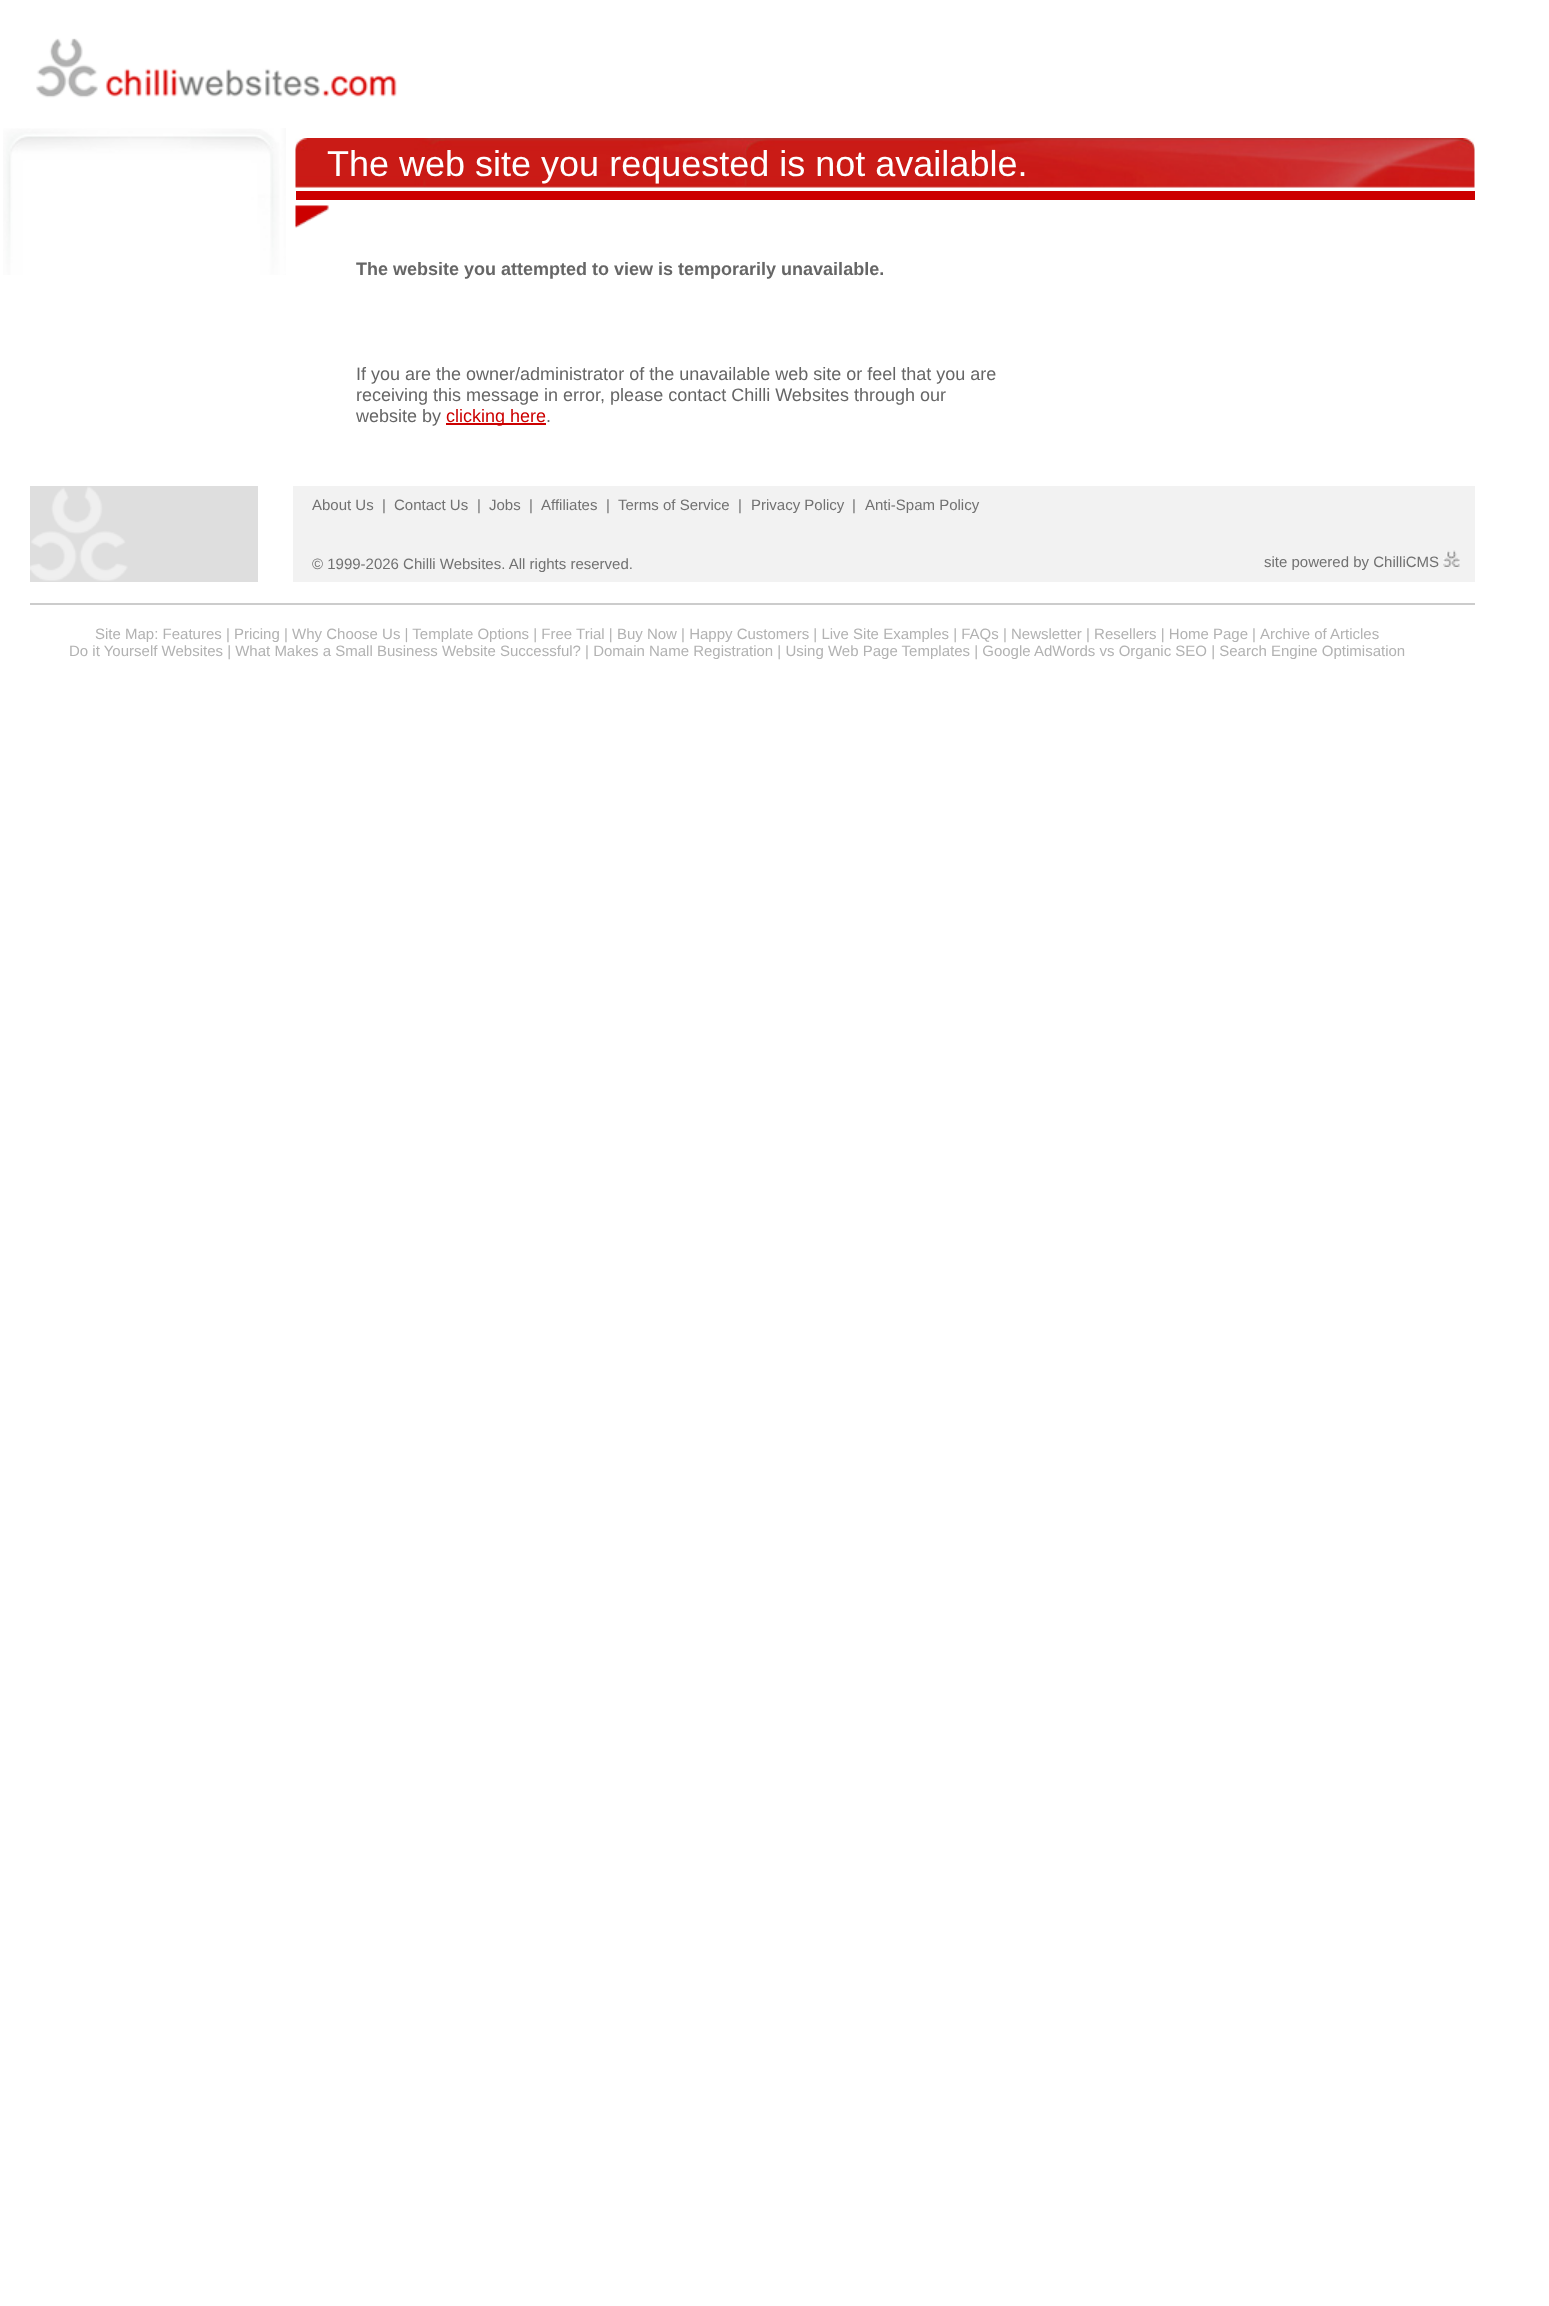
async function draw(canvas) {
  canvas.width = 1549;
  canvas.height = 2306;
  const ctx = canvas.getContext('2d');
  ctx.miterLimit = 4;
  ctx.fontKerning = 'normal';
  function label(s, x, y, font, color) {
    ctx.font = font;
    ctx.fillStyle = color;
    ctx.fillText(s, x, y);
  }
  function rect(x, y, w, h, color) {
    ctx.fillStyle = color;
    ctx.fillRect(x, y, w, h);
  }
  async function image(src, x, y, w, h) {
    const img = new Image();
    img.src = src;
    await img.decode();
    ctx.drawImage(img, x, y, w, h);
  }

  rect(0, 0, 1549, 2306, '#fff');
  await image('assets/img1.png', 36, 38, 361, 60);
  await image('assets/img2.png', 3, 128, 283, 147);
  await image('assets/img3.png', 295, 138, 1180, 50);
  label('The web site you requested is not available.', 327, 176, '36px Liberation Sans', '#fff');
  rect(296, 191, 1179, 9, '#c00');
  await image('assets/img4.png', 295, 205, 34, 23);
  label('The website you attempted to view is temporarily unavailable.', 356, 275, 'bold 18px Liberation Sans', '#666');
  label('If you are the owner/administrator of the unavailable web site or feel that you are', 356, 380, '18px Liberation Sans', '#666');
  label('receiving this message in error, please contact Chilli Websites through our', 356, 401, '18px Liberation Sans', '#666');
  label('website by', 356, 422, '18px Liberation Sans', '#666');
  rect(446, 423, 100, 2, '#c00');
  label('clicking here', 446, 422, '18px Liberation Sans', '#c00');
  label('.', 546, 422, '18px Liberation Sans', '#666');
  await image('assets/img5.png', 30, 486, 228, 96);
  rect(293, 486, 1182, 96, '#f2f2f2');
  label('About Us', 312, 510, '15px Liberation Sans', '#717171');
  label('|', 382, 510, '15px Liberation Sans', '#717171');
  label('Contact Us', 394, 510, '15px Liberation Sans', '#717171');
  label('|', 477, 510, '15px Liberation Sans', '#717171');
  label('Jobs', 489, 510, '15px Liberation Sans', '#717171');
  label('|', 529, 510, '15px Liberation Sans', '#717171');
  label('Affiliates', 541, 510, '15px Liberation Sans', '#717171');
  label('|', 606, 510, '15px Liberation Sans', '#717171');
  label('Terms of Service', 618, 510, '15px Liberation Sans', '#717171');
  label('|', 738, 510, '15px Liberation Sans', '#717171');
  label('Privacy Policy', 751, 510, '15px Liberation Sans', '#717171');
  label('|', 852, 510, '15px Liberation Sans', '#717171');
  label('Anti-Spam Policy', 865, 510, '15px Liberation Sans', '#717171');
  label('© 1999-2026 Chilli Websites. All rights reserved.', 312, 569, '15px Liberation Sans', '#717171');
  label('site powered by ChilliCMS', 1264, 567, '15px Liberation Sans', '#717171');
  await image('assets/img6.png', 1443, 550, 17, 17);
  rect(30, 603, 1445, 2, '#ccc');
  label('Site Map: Features | Pricing | Why Choose Us | Template Options | Free Trial | Buy Now | Happy Customers | Live Site Examples | FAQs | Newsletter | Resellers | Home Page', 95, 639, '15px Liberation Sans', '#b2b2b2');
  label('|', 1252, 639, '15px Liberation Sans', '#b2b2b2');
  label('Archive of Articles', 1260, 639, '15px Liberation Sans', '#b2b2b2');
  label('Do it Yourself Websites | What Makes a Small Business Website Successful? | Domain Name Registration | Using Web Page Templates | Google AdWords vs Organic SEO | Search Engine Optimisation', 69, 656, '15px Liberation Sans', '#b2b2b2');
}

draw(document.querySelector('canvas'));
